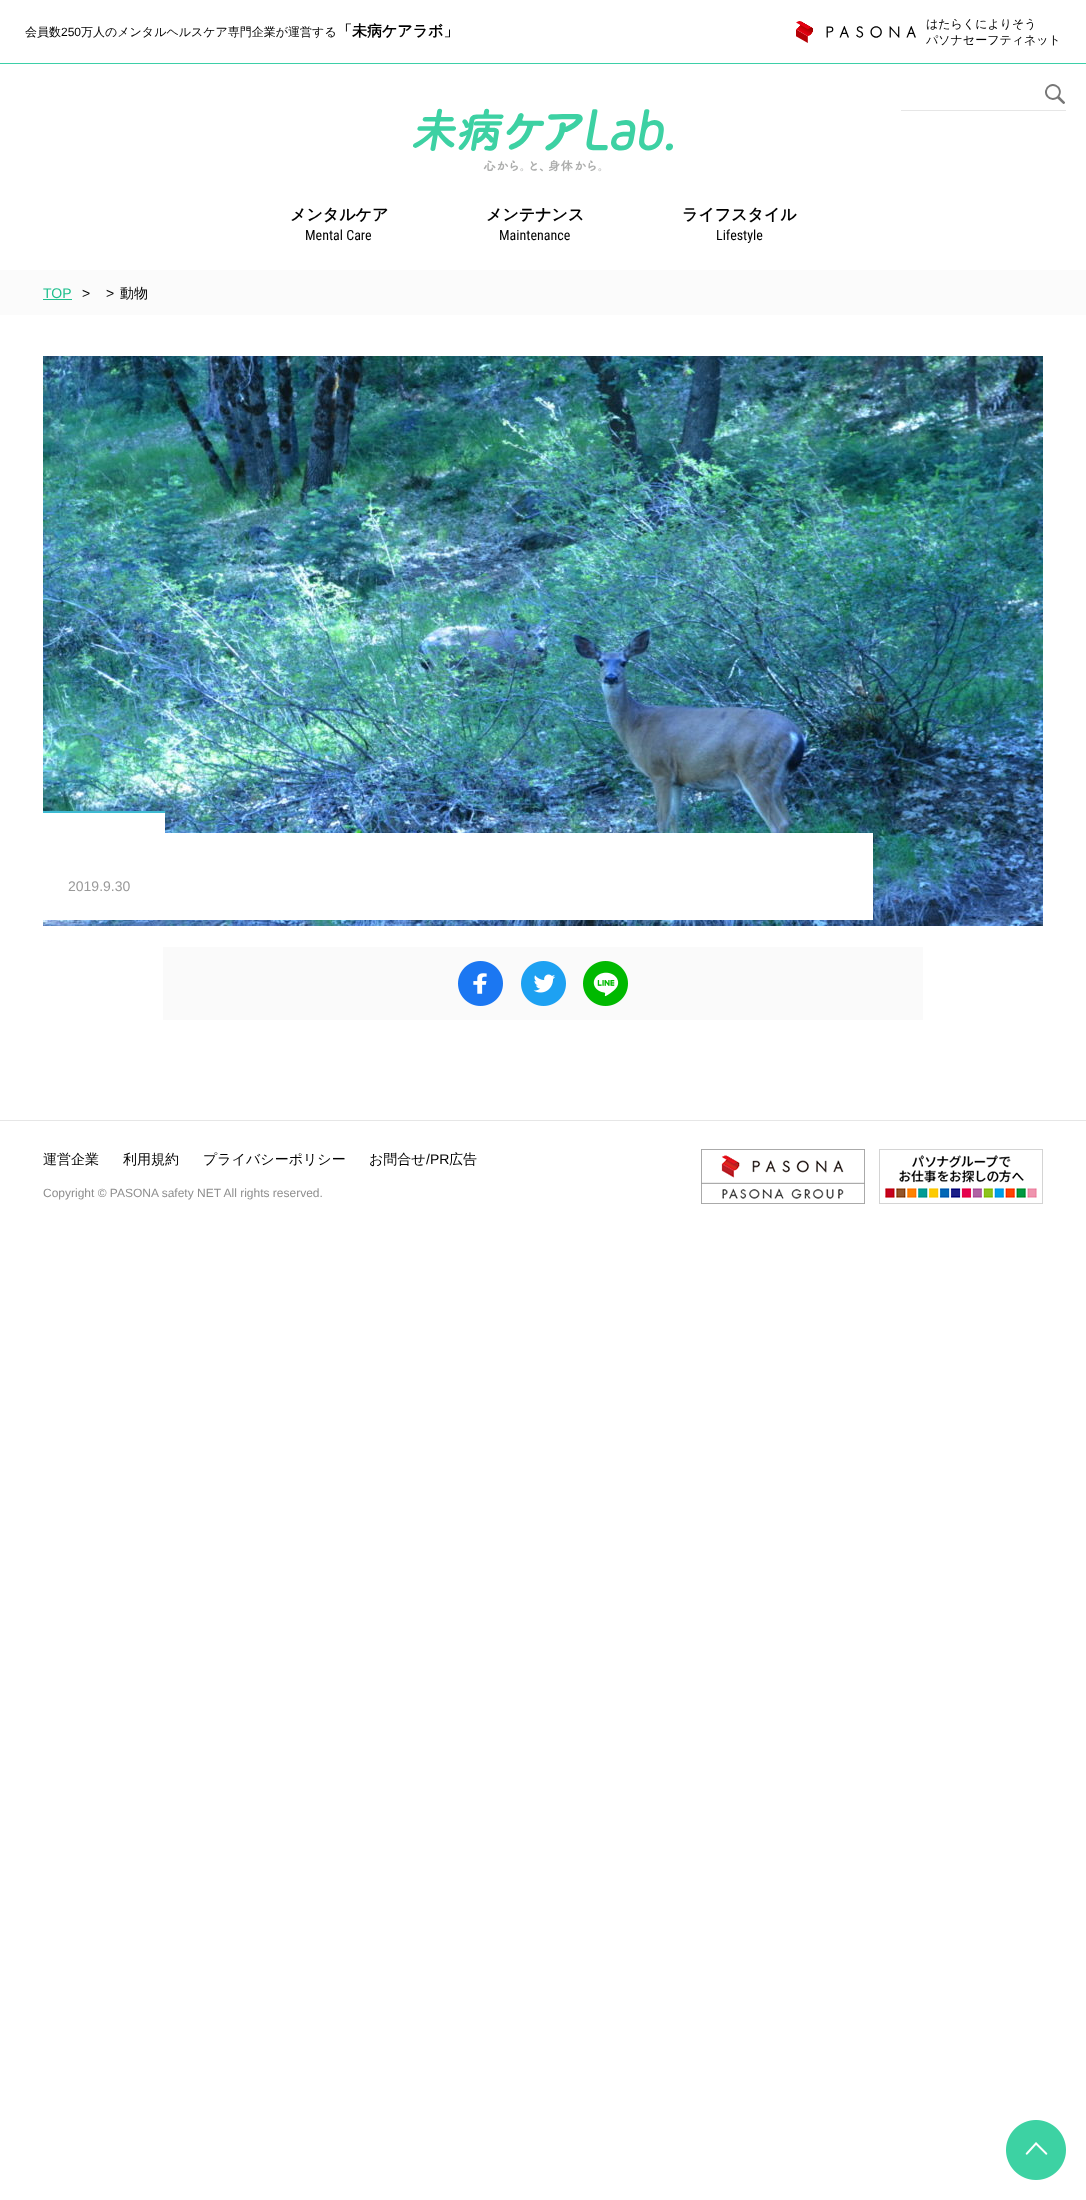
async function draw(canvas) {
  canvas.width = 1086;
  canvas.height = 2200;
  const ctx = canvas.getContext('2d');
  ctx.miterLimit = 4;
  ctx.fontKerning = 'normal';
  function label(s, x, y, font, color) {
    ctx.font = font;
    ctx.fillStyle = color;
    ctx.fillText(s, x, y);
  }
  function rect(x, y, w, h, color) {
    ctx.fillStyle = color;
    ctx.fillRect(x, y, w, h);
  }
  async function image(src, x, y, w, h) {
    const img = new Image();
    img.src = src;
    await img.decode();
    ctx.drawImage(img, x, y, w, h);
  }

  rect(0, 0, 1086, 2200, '#fff');
  rect(0, 63, 1086, 1, '#3dcfa8');
  label('会員数', 25, 36, '500 12px WenQuanYi Zen Hei', '#000');
  label('250', 61, 36, '12px Liberation Sans', '#000');
  label('万人のメンタルヘルスケア専門企業が運営する', 81, 36, '500 12px WenQuanYi Zen Hei', '#000');
  label('「未病ケアラボ」', 337, 36, 'bold 15px WenQuanYi Zen Hei', '#000');
  await image('assets/img1.png', 796, 21, 120, 22);
  label('はたらくによりそう', 926, 28, '500 12px WenQuanYi Zen Hei', '#000');
  label('パソナセーフティネット', 926, 44, '500 12px WenQuanYi Zen Hei', '#000');
  await image('assets/img2.png', 413, 108, 260, 64);
  rect(901, 110, 165, 1, '#e6e6e6');
  await image('assets/img3.png', 1045, 84, 20, 20);
  label('メンタルケア', 290, 220, 'bold 16px WenQuanYi Zen Hei', '#000');
  label('Mental Care', 305, 240, '14px Roboto Condensed', '#000');
  label('メンテナンス', 486, 220, 'bold 16px WenQuanYi Zen Hei', '#000');
  label('Maintenance', 499, 240, '14px Roboto Condensed', '#000');
  label('ライフスタイル', 682, 220, 'bold 16px WenQuanYi Zen Hei', '#000');
  label('Lifestyle', 716, 240, '14px Roboto Condensed', '#000');
  rect(0, 270, 1086, 45, '#fbfbfb');
  label('TOP', 43, 298, '14px Liberation Sans', '#1fbf8d');
  rect(43, 299, 29, 1, '#1fbf8d');
  label('>', 82, 298, '14px Liberation Sans', '#000');
  label('>', 106, 298, '14px Liberation Sans', '#000');
  label('動物', 120, 298, '500 14px WenQuanYi Zen Hei', '#000');
  await image('assets/img4.png', 43, 356, 1000, 570);
  rect(43, 813, 122, 20, '#fff');
  rect(43, 811, 122, 2, '#3dbad2');
  rect(43, 833, 830, 87, '#fff');
  label('2019.9.30', 68, 891, '14px Liberation Sans', '#999');
  rect(163, 947, 760, 73, '#fafafa');
  await image('assets/img5.png', 458, 961, 45, 45);
  await image('assets/img6.png', 521, 961, 45, 45);
  await image('assets/img7.png', 583, 961, 45, 45);
  rect(0, 1120, 1086, 1, '#e6e6e6');
  label('運営企業', 43, 1164, '500 14px WenQuanYi Zen Hei', '#000');
  label('利用規約', 123, 1164, '500 14px WenQuanYi Zen Hei', '#000');
  label('プライバシーポリシー', 203, 1164, '500 14px WenQuanYi Zen Hei', '#000');
  label('お問合せ', 369, 1164, '500 14px WenQuanYi Zen Hei', '#000');
  label('/PR', 426, 1164, '14px Liberation Sans', '#000');
  label('広告', 449, 1164, '500 14px WenQuanYi Zen Hei', '#000');
  label('Copyright © PASONA safety NET All rights reserved.', 43, 1197, '12px Liberation Sans', '#8e8e8e');
  await image('assets/img8.png', 701, 1149, 164, 55);
  await image('assets/img9.png', 879, 1149, 164, 55);
  await image('assets/img10.png', 1006, 2120, 60, 60);
}

draw(document.querySelector('canvas'));
